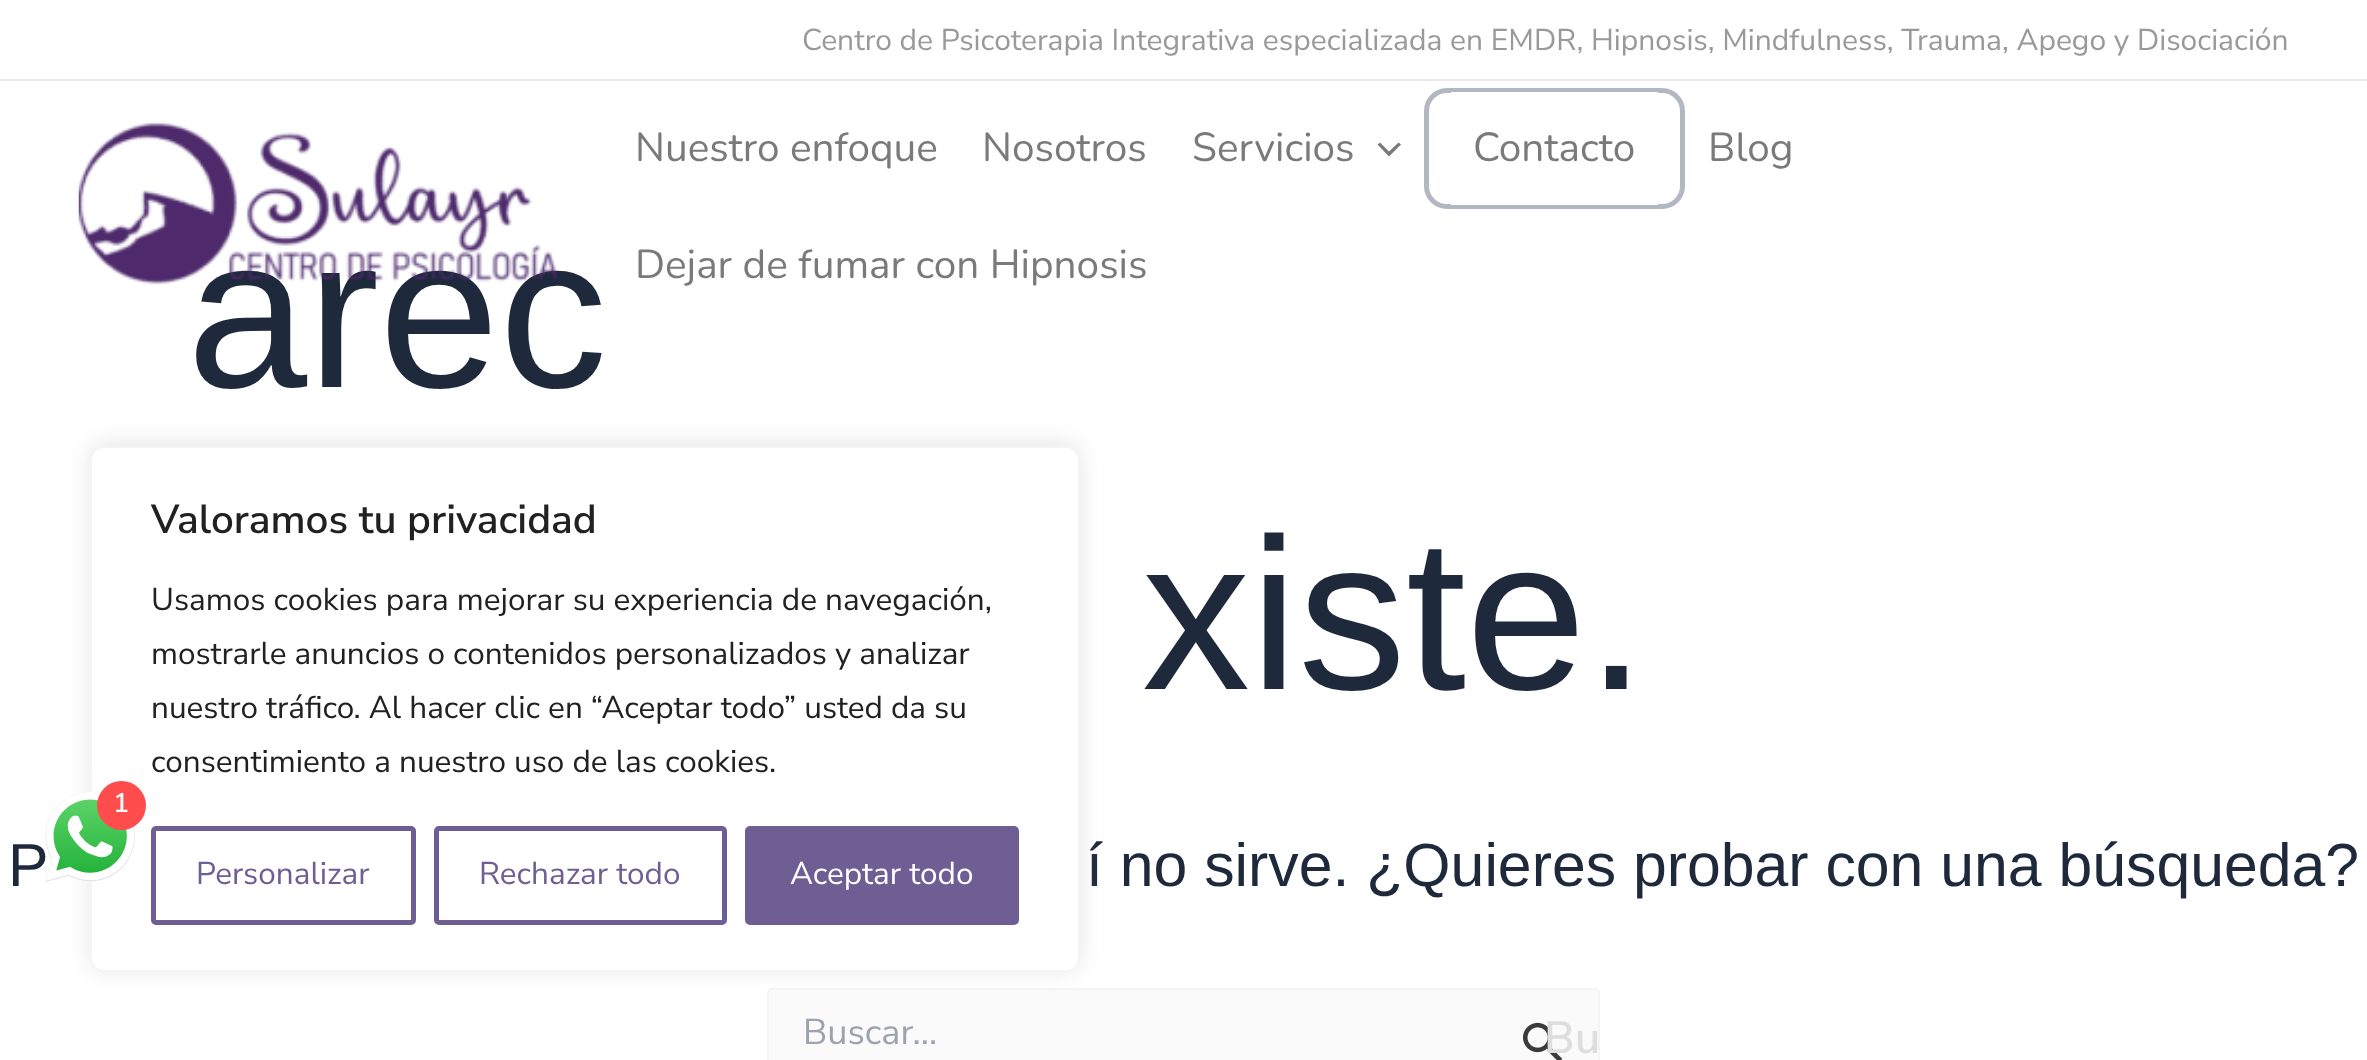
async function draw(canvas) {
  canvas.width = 2367;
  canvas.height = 1060;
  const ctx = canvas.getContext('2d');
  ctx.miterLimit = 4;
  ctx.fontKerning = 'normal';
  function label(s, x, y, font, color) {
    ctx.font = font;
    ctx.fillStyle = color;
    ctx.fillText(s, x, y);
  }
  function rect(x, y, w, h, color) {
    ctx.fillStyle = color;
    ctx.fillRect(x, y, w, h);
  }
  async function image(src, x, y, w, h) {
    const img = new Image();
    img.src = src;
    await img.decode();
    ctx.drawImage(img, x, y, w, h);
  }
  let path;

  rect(0, 0, 2367, 1060, '#fff');
  rect(0, 79, 2367, 2, '#eaeaea');
  label('Centro de Psicoterapia Integrativa especializada en EMDR, Hipnosis, Mindfulness, Trauma, Apego y Disociación', 802, 50, '30px Nunito Sans', '#999');
  label('arec', 187, 387, '216px Liberation Sans', '#1e293b');
  await image('assets/img1.png', 78, 121, 481, 164);
  label('Nuestro enfoque', 635, 161, '200 40.5px Nunito', '#7a7a7a');
  label('Nosotros', 982, 161, '200 40.5px Nunito', '#7a7a7a');
  label('Servicios', 1192, 161, '200 40.5px Nunito', '#7a7a7a');
  path = new Path2D('M1377.5 144.5L1389 156.5L1401 144.5L1398.5 142.5L1389 151.5L1380 142.5Z');
  ctx.fill(path);
  ctx.beginPath();
  ctx.roundRect(1426.5, 90.5, 256, 116, 20.5);
  ctx.strokeStyle = '#b3b6c3';
  ctx.lineWidth = 5;
  ctx.stroke();
  rect(1451, 92, 207, 113, '#fff');
  label('Contacto', 1473, 161, '200 40.5px Nunito', '#7a7a7a');
  label('Blog', 1708, 161, '200 40.5px Nunito', '#7a7a7a');
  label('Dejar de fumar con Hipnosis', 635, 278, '200 40.5px Nunito', '#7a7a7a');
  label('xiste.', 1142, 689, '216px Liberation Sans', '#1e293b');
  label('P', 8, 886, '60.75px Liberation Sans', '#1e293b');
  label('í no sirve. ¿Quieres probar con una búsqueda?', 1086, 886, '60.75px Liberation Sans', '#1e293b');
  ctx.fillStyle = '#fafafa';
  ctx.beginPath();
  ctx.roundRect(768, 989, 831, 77, 4);
  ctx.fill();
  ctx.strokeStyle = '#f2f5f7';
  ctx.lineWidth = 2;
  ctx.stroke();
  label('Buscar...', 803, 1044, '36px Nunito Sans', '#9ca3af');
  await image('assets/img2.png', 1523, 1022, 39, 38);
  label('Bu', 1544, 1053, '600 45px Nunito Sans', '#dedede');
  ctx.fillStyle = '#acabab4d';
  ctx.filter = 'blur(11px)';
  ctx.beginPath();
  ctx.roundRect(90, 443, 990, 527, 14);
  ctx.fill();
  ctx.filter = 'none';
  ctx.fillStyle = '#fff';
  ctx.beginPath();
  ctx.roundRect(91, 447, 988, 524, 13);
  ctx.fill();
  ctx.strokeStyle = '#f4f4f4';
  ctx.stroke();
  await image('assets/img3.png', 45, 792, 90, 90);
  ctx.fillStyle = '#ff4c4c';
  ctx.beginPath();
  ctx.arc(121.5, 805.5, 24.5, 0, 2 * Math.PI);
  ctx.fill();
  label('1', 113, 812, '600 27px Nunito Sans', '#fff');
  label('Valoramos tu privacidad', 151, 533, '600 40.5px Nunito Sans', '#212121');
  label('Usamos cookies para mejorar su experiencia de navegación,', 151, 610, '31.5px Nunito Sans', '#212121');
  label('mostrarle anuncios o contenidos personalizados y analizar', 151, 664, '31.5px Nunito Sans', '#212121');
  label('nuestro tráfico. Al hacer clic en “Aceptar todo” usted da su', 151, 718, '31.5px Nunito Sans', '#212121');
  label('consentimiento a nuestro uso de las cookies.', 151, 772, '31.5px Nunito Sans', '#212121');
  ctx.beginPath();
  ctx.roundRect(153.5, 828.5, 260, 94, 2.5);
  ctx.strokeStyle = '#6f5e93';
  ctx.lineWidth = 5;
  ctx.stroke();
  label('Personalizar', 196, 884, '31.5px Nunito Sans', '#6f5e93');
  ctx.beginPath();
  ctx.roundRect(436.5, 828.5, 288, 94, 2.5);
  ctx.stroke();
  label('Rechazar todo', 479, 884, '31.5px Nunito Sans', '#6f5e93');
  ctx.beginPath();
  ctx.roundRect(747.5, 828.5, 269, 94, 2.5);
  ctx.fill();
  ctx.stroke();
  label('Aceptar todo', 790, 884, '31.5px Nunito Sans', '#fff');
}

draw(document.querySelector('canvas'));
